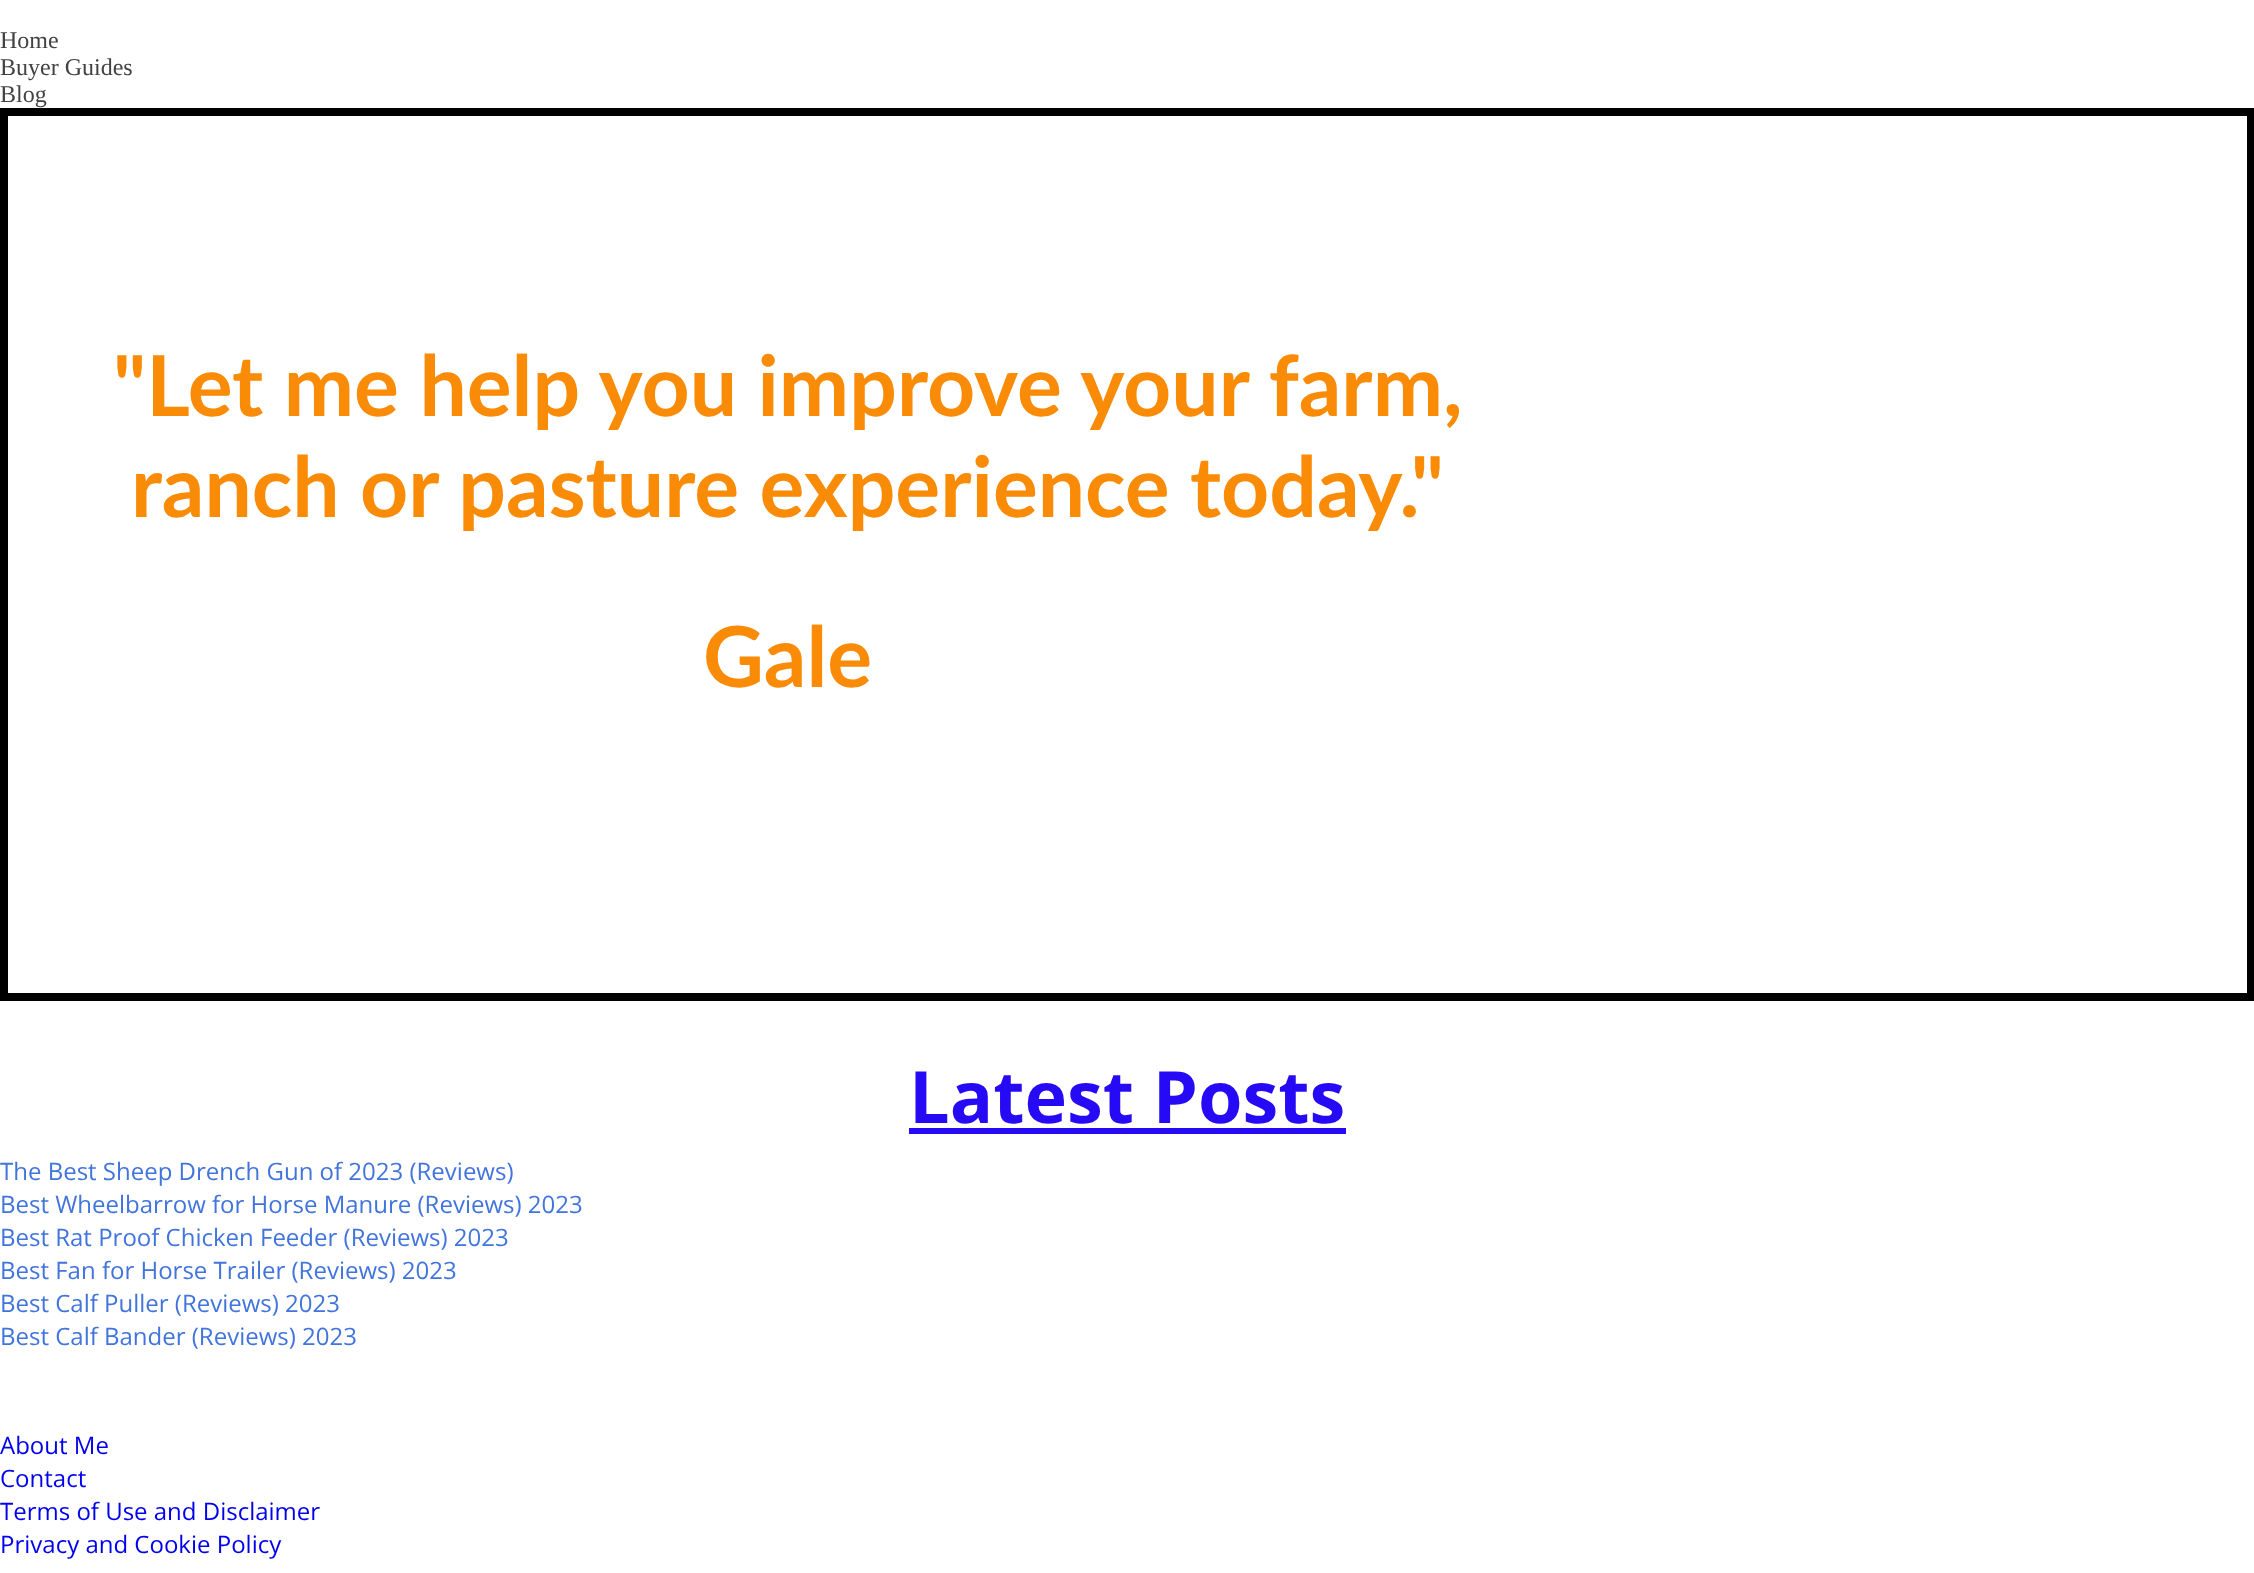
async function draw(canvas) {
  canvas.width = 2254;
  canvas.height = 1573;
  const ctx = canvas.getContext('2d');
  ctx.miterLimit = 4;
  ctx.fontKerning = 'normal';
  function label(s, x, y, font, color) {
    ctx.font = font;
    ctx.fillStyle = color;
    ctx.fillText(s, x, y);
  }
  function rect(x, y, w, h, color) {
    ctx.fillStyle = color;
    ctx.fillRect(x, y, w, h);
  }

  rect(0, 0, 2254, 1573, '#fff');
  label('Home', 0, 48, '24px Liberation Serif', '#424242');
  label('Buyer Guides', 0, 75, '24px Liberation Serif', '#424242');
  label('Blog', 0, 102, '24px Liberation Serif', '#424242');
  ctx.strokeStyle = '#000';
  ctx.lineWidth = 8;
  ctx.strokeRect(4, 112, 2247, 885);
  label('"Let me help you improve your farm,', 113, 416, 'bold 84px Lato', '#f98b07');
  label('ranch or pasture experience today."', 131, 517, 'bold 84px Lato', '#f98b07');
  label('Gale', 703, 687, 'bold 84px Lato', '#f98b07');
  label('Latest Posts', 909, 1123, 'bold 72px Open Sans', '#2609f5');
  rect(909, 1128, 437, 6, '#2609f5');
  label('The Best Sheep Drench Gun of 2023 (Reviews)', 0, 1180, '24px Open Sans', '#4174dc');
  label('Best Wheelbarrow for Horse Manure (Reviews) 2023', 0, 1213, '24px Open Sans', '#4174dc');
  label('Best Rat Proof Chicken Feeder (Reviews) 2023', 0, 1246, '24px Open Sans', '#4174dc');
  label('Best Fan for Horse Trailer (Reviews) 2023', 0, 1279, '24px Open Sans', '#4174dc');
  label('Best Calf Puller (Reviews) 2023', 0, 1312, '24px Open Sans', '#4174dc');
  label('Best Calf Bander (Reviews) 2023', 0, 1345, '24px Open Sans', '#4174dc');
  label('About Me', 0, 1454, '24px Open Sans', '#00e');
  label('Contact', 0, 1487, '24px Open Sans', '#00e');
  label('Terms of Use and Disclaimer', 0, 1520, '24px Open Sans', '#00e');
  label('Privacy and Cookie Policy', 0, 1553, '24px Open Sans', '#00e');
}

draw(document.querySelector('canvas'));
